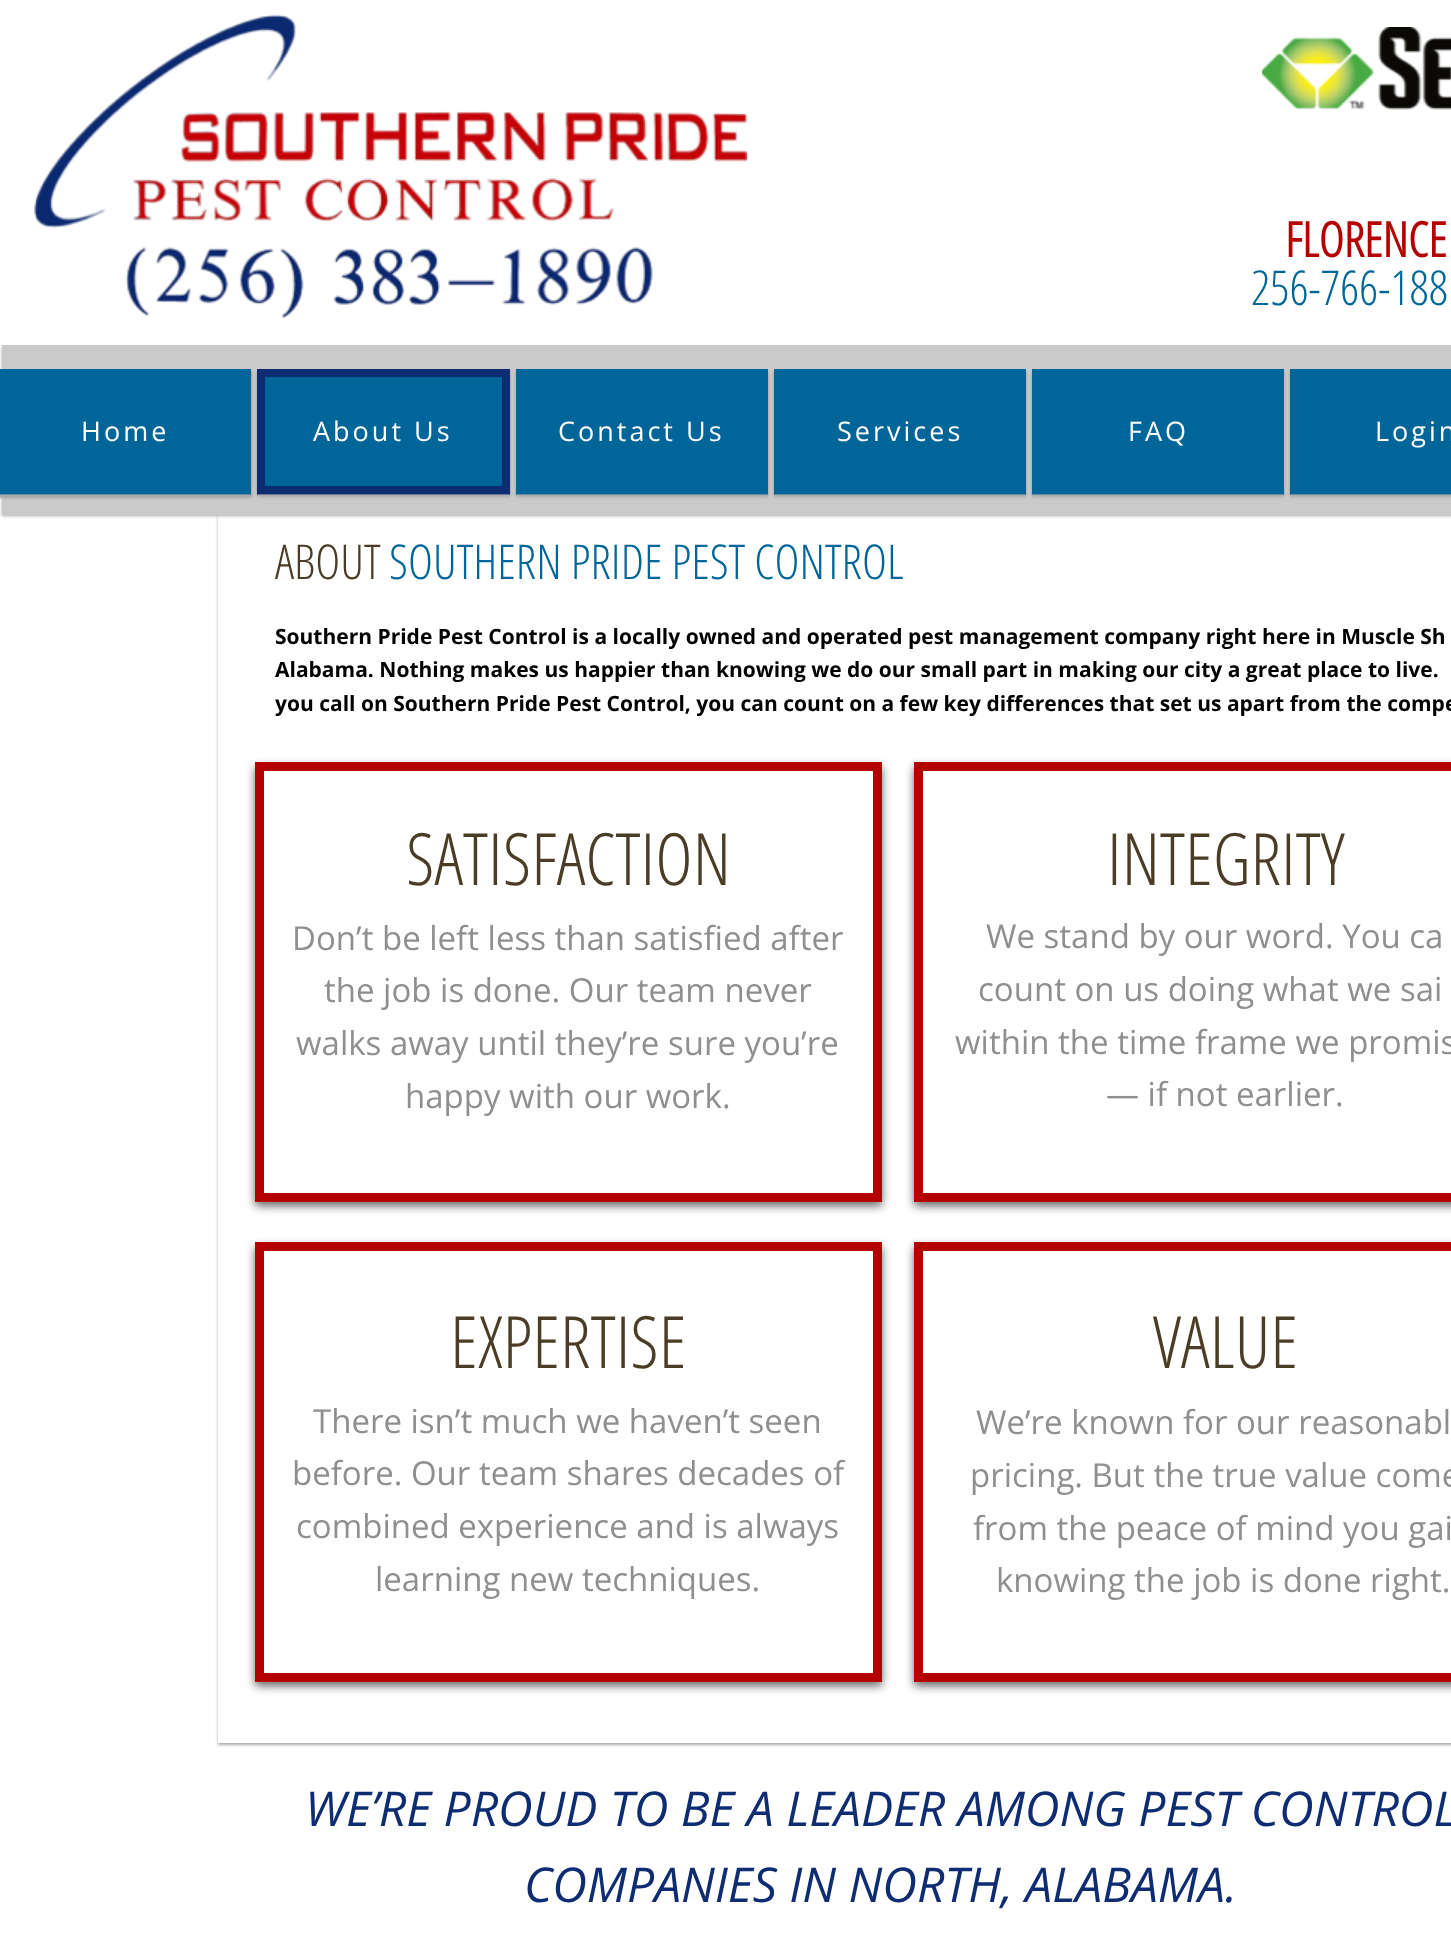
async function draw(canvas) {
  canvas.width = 1451;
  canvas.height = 1948;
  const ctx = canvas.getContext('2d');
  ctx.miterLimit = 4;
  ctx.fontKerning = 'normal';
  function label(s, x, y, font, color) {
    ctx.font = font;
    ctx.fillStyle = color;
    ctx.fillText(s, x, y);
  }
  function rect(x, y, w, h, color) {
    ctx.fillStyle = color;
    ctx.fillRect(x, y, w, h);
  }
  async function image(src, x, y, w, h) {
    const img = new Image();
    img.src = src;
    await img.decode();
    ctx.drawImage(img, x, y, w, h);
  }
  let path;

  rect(0, 0, 1451, 1948, '#fff');
  await image('assets/img1.png', 34, 14, 715, 305);
  await image('assets/img2.png', 1262, 27, 189, 83);
  label('FLORENCE', 1285, 257, 'bold 48px Open Sans Condensed', '#b50000');
  label('256-766-188', 1251, 305, '300 48px Open Sans Condensed', '#069');
  ctx.fillStyle = '#aaa';
  ctx.filter = 'blur(1.5px)';
  ctx.beginPath();
  ctx.rect(2, 347, 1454, 169);
  ctx.fill();
  ctx.filter = 'none';
  ctx.save();
  path = new Path2D('M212 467H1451V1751H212ZM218 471H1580V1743H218Z');
  ctx.clip(path, 'evenodd');
  ctx.filter = 'blur(1.5px)';
  ctx.beginPath();
  ctx.rect(218, 473, 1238, 1272);
  ctx.fill();
  ctx.filter = 'none';
  ctx.restore();
  rect(2, 345, 1449, 170, '#cacaca');
  ctx.fillStyle = '#aaa';
  ctx.filter = 'blur(1.5px)';
  ctx.beginPath();
  ctx.rect(-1, 372, 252, 125);
  ctx.fill();
  ctx.filter = 'none';
  ctx.filter = 'blur(1.5px)';
  ctx.beginPath();
  ctx.rect(257, 372, 253, 125);
  ctx.fill();
  ctx.filter = 'none';
  ctx.filter = 'blur(1.5px)';
  ctx.beginPath();
  ctx.rect(516, 372, 252, 125);
  ctx.fill();
  ctx.filter = 'none';
  ctx.filter = 'blur(1.5px)';
  ctx.beginPath();
  ctx.rect(774, 372, 252, 125);
  ctx.fill();
  ctx.filter = 'none';
  ctx.filter = 'blur(1.5px)';
  ctx.beginPath();
  ctx.rect(1032, 372, 252, 125);
  ctx.fill();
  ctx.filter = 'none';
  ctx.filter = 'blur(1.5px)';
  ctx.beginPath();
  ctx.rect(1290, 372, 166, 125);
  ctx.fill();
  ctx.filter = 'none';
  ctx.filter = 'blur(1.5px)';
  ctx.beginPath();
  ctx.rect(-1, 372, 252, 125);
  ctx.fill();
  ctx.filter = 'none';
  ctx.filter = 'blur(1.5px)';
  ctx.beginPath();
  ctx.rect(-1, 372, 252, 125);
  ctx.fill();
  ctx.filter = 'none';
  rect(0, 494, 251, 1, '#069');
  ctx.strokeStyle = '#0e2c72';
  ctx.lineWidth = 8;
  ctx.strokeRect(261, 375, 245, 116);
  rect(516, 494, 252, 1, '#069');
  rect(774, 494, 252, 1, '#069');
  rect(1032, 494, 252, 1, '#069');
  rect(1290, 494, 161, 1, '#069');
  ctx.fillStyle = '#aaa';
  ctx.filter = 'blur(1.5px)';
  ctx.beginPath();
  ctx.rect(-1, 371, 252, 124);
  ctx.fill();
  ctx.filter = 'none';
  rect(0, 369, 251, 125, '#069');
  ctx.letterSpacing = '3px';
  label('Home', 81, 441, '27px Open Sans', '#fff');
  ctx.fillStyle = '#aaa';
  ctx.filter = 'blur(1.5px)';
  ctx.beginPath();
  ctx.rect(257, 371, 253, 124);
  ctx.fill();
  ctx.filter = 'none';
  ctx.fillStyle = '#069';
  ctx.beginPath();
  ctx.rect(261, 373, 245, 117);
  ctx.fill();
  ctx.stroke();
  label('About Us', 313, 441, '27px Open Sans', '#fff');
  ctx.fillStyle = '#aaa';
  ctx.filter = 'blur(1.5px)';
  ctx.beginPath();
  ctx.rect(516, 371, 252, 124);
  ctx.fill();
  ctx.filter = 'none';
  rect(516, 369, 252, 125, '#069');
  label('Contact Us', 558, 441, '27px Open Sans', '#fff');
  ctx.fillStyle = '#aaa';
  ctx.filter = 'blur(1.5px)';
  ctx.beginPath();
  ctx.rect(774, 371, 252, 124);
  ctx.fill();
  ctx.filter = 'none';
  rect(774, 369, 252, 125, '#069');
  label('Services', 837, 441, '27px Open Sans', '#fff');
  ctx.fillStyle = '#aaa';
  ctx.filter = 'blur(1.5px)';
  ctx.beginPath();
  ctx.rect(1032, 371, 252, 124);
  ctx.fill();
  ctx.filter = 'none';
  rect(1032, 369, 252, 125, '#069');
  label('FAQ', 1128, 441, '27px Open Sans', '#fff');
  ctx.fillStyle = '#aaa';
  ctx.filter = 'blur(1.5px)';
  ctx.beginPath();
  ctx.rect(1290, 371, 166, 124);
  ctx.fill();
  ctx.filter = 'none';
  rect(1290, 369, 161, 125, '#069');
  label('Login', 1375, 441, '27px Open Sans', '#fff');
  ctx.letterSpacing = '0px';
  label('ABOUT', 275, 579, '300 48px Open Sans Condensed', '#4b3c25');
  label('SOUTHERN PRIDE PEST CONTROL', 389, 579, '300 48px Open Sans Condensed', '#069');
  label('Southern Pride Pest Control is a locally owned and operated pest management company right here in Muscle Sh', 275, 644, 'bold 21px Open Sans', '#000');
  label('Alabama. Nothing makes us happier than knowing we do our small part in making our city a great place to live.', 275, 677, 'bold 21px Open Sans', '#000');
  label('you call on Southern Pride Pest Control, you can count on a few key differences that set us apart from the compe', 275, 711, 'bold 21px Open Sans', '#000');
  ctx.fillStyle = '#323232bf';
  ctx.filter = 'blur(5px)';
  ctx.beginPath();
  ctx.rect(255, 767, 627, 439);
  ctx.fill();
  ctx.filter = 'none';
  ctx.fillStyle = '#fff';
  ctx.beginPath();
  ctx.rect(259.5, 766.5, 618, 431);
  ctx.fill();
  ctx.strokeStyle = '#b50000';
  ctx.lineWidth = 9;
  ctx.stroke();
  ctx.fillStyle = '#323232bf';
  ctx.filter = 'blur(5px)';
  ctx.beginPath();
  ctx.rect(914, 767, 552, 439);
  ctx.fill();
  ctx.filter = 'none';
  ctx.fillStyle = '#fff';
  ctx.beginPath();
  ctx.rect(918.5, 766.5, 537, 431);
  ctx.fill();
  ctx.stroke();
  label('SATISFACTION', 406, 885, '300 72px Open Sans Condensed', '#4b3c25');
  label('INTEGRITY', 1107, 885, '300 72px Open Sans Condensed', '#4b3c25');
  label('Don’t be left less than satisfied after', 292, 950, '33px Open Sans', '#8f8f8f');
  label('the job is done. Our team never', 324, 1002, '33px Open Sans', '#8f8f8f');
  label('walks away until they’re sure you’re', 296, 1055, '33px Open Sans', '#8f8f8f');
  label('happy with our work.', 405, 1108, '33px Open Sans', '#8f8f8f');
  label('We stand by our word. You ca', 986, 948, '33px Open Sans', '#8f8f8f');
  label('count on us doing what we sai', 978, 1001, '33px Open Sans', '#8f8f8f');
  label('within the time frame we promis', 955, 1054, '33px Open Sans', '#8f8f8f');
  label('— if not earlier.', 1106, 1106, '33px Open Sans', '#8f8f8f');
  ctx.fillStyle = '#323232bf';
  ctx.filter = 'blur(5px)';
  ctx.beginPath();
  ctx.rect(255, 1247, 627, 439);
  ctx.fill();
  ctx.filter = 'none';
  ctx.fillStyle = '#fff';
  ctx.beginPath();
  ctx.rect(259.5, 1246.5, 618, 431);
  ctx.fill();
  ctx.stroke();
  ctx.fillStyle = '#323232bf';
  ctx.filter = 'blur(5px)';
  ctx.beginPath();
  ctx.rect(914, 1247, 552, 439);
  ctx.fill();
  ctx.filter = 'none';
  ctx.fillStyle = '#fff';
  ctx.beginPath();
  ctx.rect(918.5, 1246.5, 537, 431);
  ctx.fill();
  ctx.stroke();
  label('EXPERTISE', 450, 1368, '300 72px Open Sans Condensed', '#4b3c25');
  label('VALUE', 1153, 1368, '300 72px Open Sans Condensed', '#4b3c25');
  label('There isn’t much we haven’t seen', 313, 1433, '33px Open Sans', '#8f8f8f');
  label('before. Our team shares decades of', 292, 1485, '33px Open Sans', '#8f8f8f');
  label('combined experience and is always', 296, 1538, '33px Open Sans', '#8f8f8f');
  label('learning new techniques.', 375, 1591, '33px Open Sans', '#8f8f8f');
  label('We’re known for our reasonabl', 976, 1434, '33px Open Sans', '#8f8f8f');
  label('pricing. But the true value come', 970, 1487, '33px Open Sans', '#8f8f8f');
  label('from the peace of mind you gai', 973, 1540, '33px Open Sans', '#8f8f8f');
  label('knowing the job is done right.', 996, 1592, '33px Open Sans', '#8f8f8f');
  label('WE’RE PROUD TO BE A LEADER AMONG PEST CONTROL', 305, 1826, 'italic 48px Open Sans', '#0e2c72');
  label('COMPANIES IN NORTH, ALABAMA.', 524, 1902, 'italic 48px Open Sans', '#0e2c72');
}

draw(document.querySelector('canvas'));
